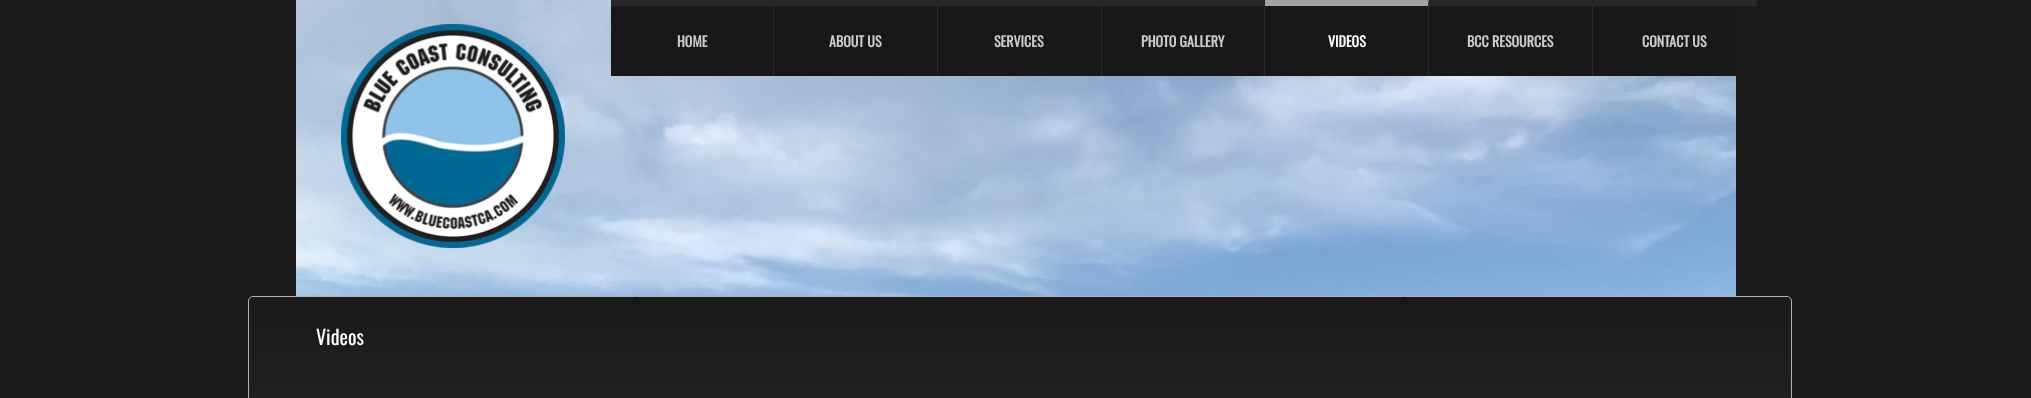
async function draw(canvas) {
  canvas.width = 2031;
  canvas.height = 398;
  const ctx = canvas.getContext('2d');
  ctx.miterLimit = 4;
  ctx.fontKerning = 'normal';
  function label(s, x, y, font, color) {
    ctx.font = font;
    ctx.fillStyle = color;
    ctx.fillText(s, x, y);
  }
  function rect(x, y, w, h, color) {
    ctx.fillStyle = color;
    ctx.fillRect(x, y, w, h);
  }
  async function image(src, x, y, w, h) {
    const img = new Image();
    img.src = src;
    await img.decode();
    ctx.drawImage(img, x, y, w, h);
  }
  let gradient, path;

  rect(0, 0, 2031, 398, '#191919');
  await image('assets/img1.png', 296, 0, 1440, 296);
  await image('assets/img2.png', 341, 24, 224, 224);
  rect(611, 0, 982, 76, '#181818');
  ctx.fillStyle = '#282828';
  path = new Path2D('M611-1H774L773 6H611Z');
  ctx.fill(path);
  ctx.fillStyle = '#2a2a2a';
  path = new Path2D('M774-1V76H773V6Z');
  ctx.fill(path);
  label('HOME', 677, 47, 'bold 14px Oswald', '#ccc');
  ctx.fillStyle = '#282828';
  path = new Path2D('M774-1H938L937 6H774Z');
  ctx.fill(path);
  ctx.fillStyle = '#2a2a2a';
  path = new Path2D('M938-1V76H937V6Z');
  ctx.fill(path);
  label('ABOUT US', 829, 47, 'bold 14px Oswald', '#ccc');
  ctx.fillStyle = '#282828';
  path = new Path2D('M938-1H1102L1101 6H938Z');
  ctx.fill(path);
  ctx.fillStyle = '#2a2a2a';
  path = new Path2D('M1102-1V76H1101V6Z');
  ctx.fill(path);
  label('SERVICES', 994, 47, 'bold 14px Oswald', '#ccc');
  ctx.fillStyle = '#282828';
  path = new Path2D('M1102-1H1265L1264 6H1102Z');
  ctx.fill(path);
  ctx.fillStyle = '#2a2a2a';
  path = new Path2D('M1265-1V76H1264V6Z');
  ctx.fill(path);
  label('PHOTO GALLERY', 1141, 47, 'bold 14px Oswald', '#ccc');
  ctx.fillStyle = '#a3a3a3';
  path = new Path2D('M1265-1H1429L1428 6H1265Z');
  ctx.fill(path);
  ctx.fillStyle = '#2a2a2a';
  path = new Path2D('M1429-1V76H1428V6Z');
  ctx.fill(path);
  label('VIDEOS', 1328, 47, 'bold 14px Oswald', '#fff');
  ctx.fillStyle = '#282828';
  path = new Path2D('M1429-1H1593L1592 6H1429Z');
  ctx.fill(path);
  ctx.fillStyle = '#2a2a2a';
  path = new Path2D('M1593-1V76H1592V6Z');
  ctx.fill(path);
  label('BCC RESOURCES', 1467, 47, 'bold 14px Oswald', '#ccc');
  rect(1593, 6, 143, 70, '#181818');
  rect(1593, 0, 164, 6, '#282828');
  label('CONTACT US', 1642, 47, 'bold 14px Oswald', '#ccc');
  ctx.save();
  ctx.beginPath();
  ctx.roundRect(248, 296, 1544, 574, 5);
  ctx.clip();
  gradient = ctx.createLinearGradient(1020, 297, 1020, 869);
  gradient.addColorStop(0, '#191919');
  gradient.addColorStop(1, '#494848');
  ctx.fillStyle = gradient;
  ctx.fillRect(248, 297, 1544, 101);
  ctx.restore();
  ctx.beginPath();
  ctx.roundRect(248.5, 296.5, 1543, 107, 4.5);
  ctx.strokeStyle = '#a9b4bb';
  ctx.stroke();
  label('Videos', 316, 345, '20px Oswald', '#fff');
}

draw(document.querySelector('canvas'));
